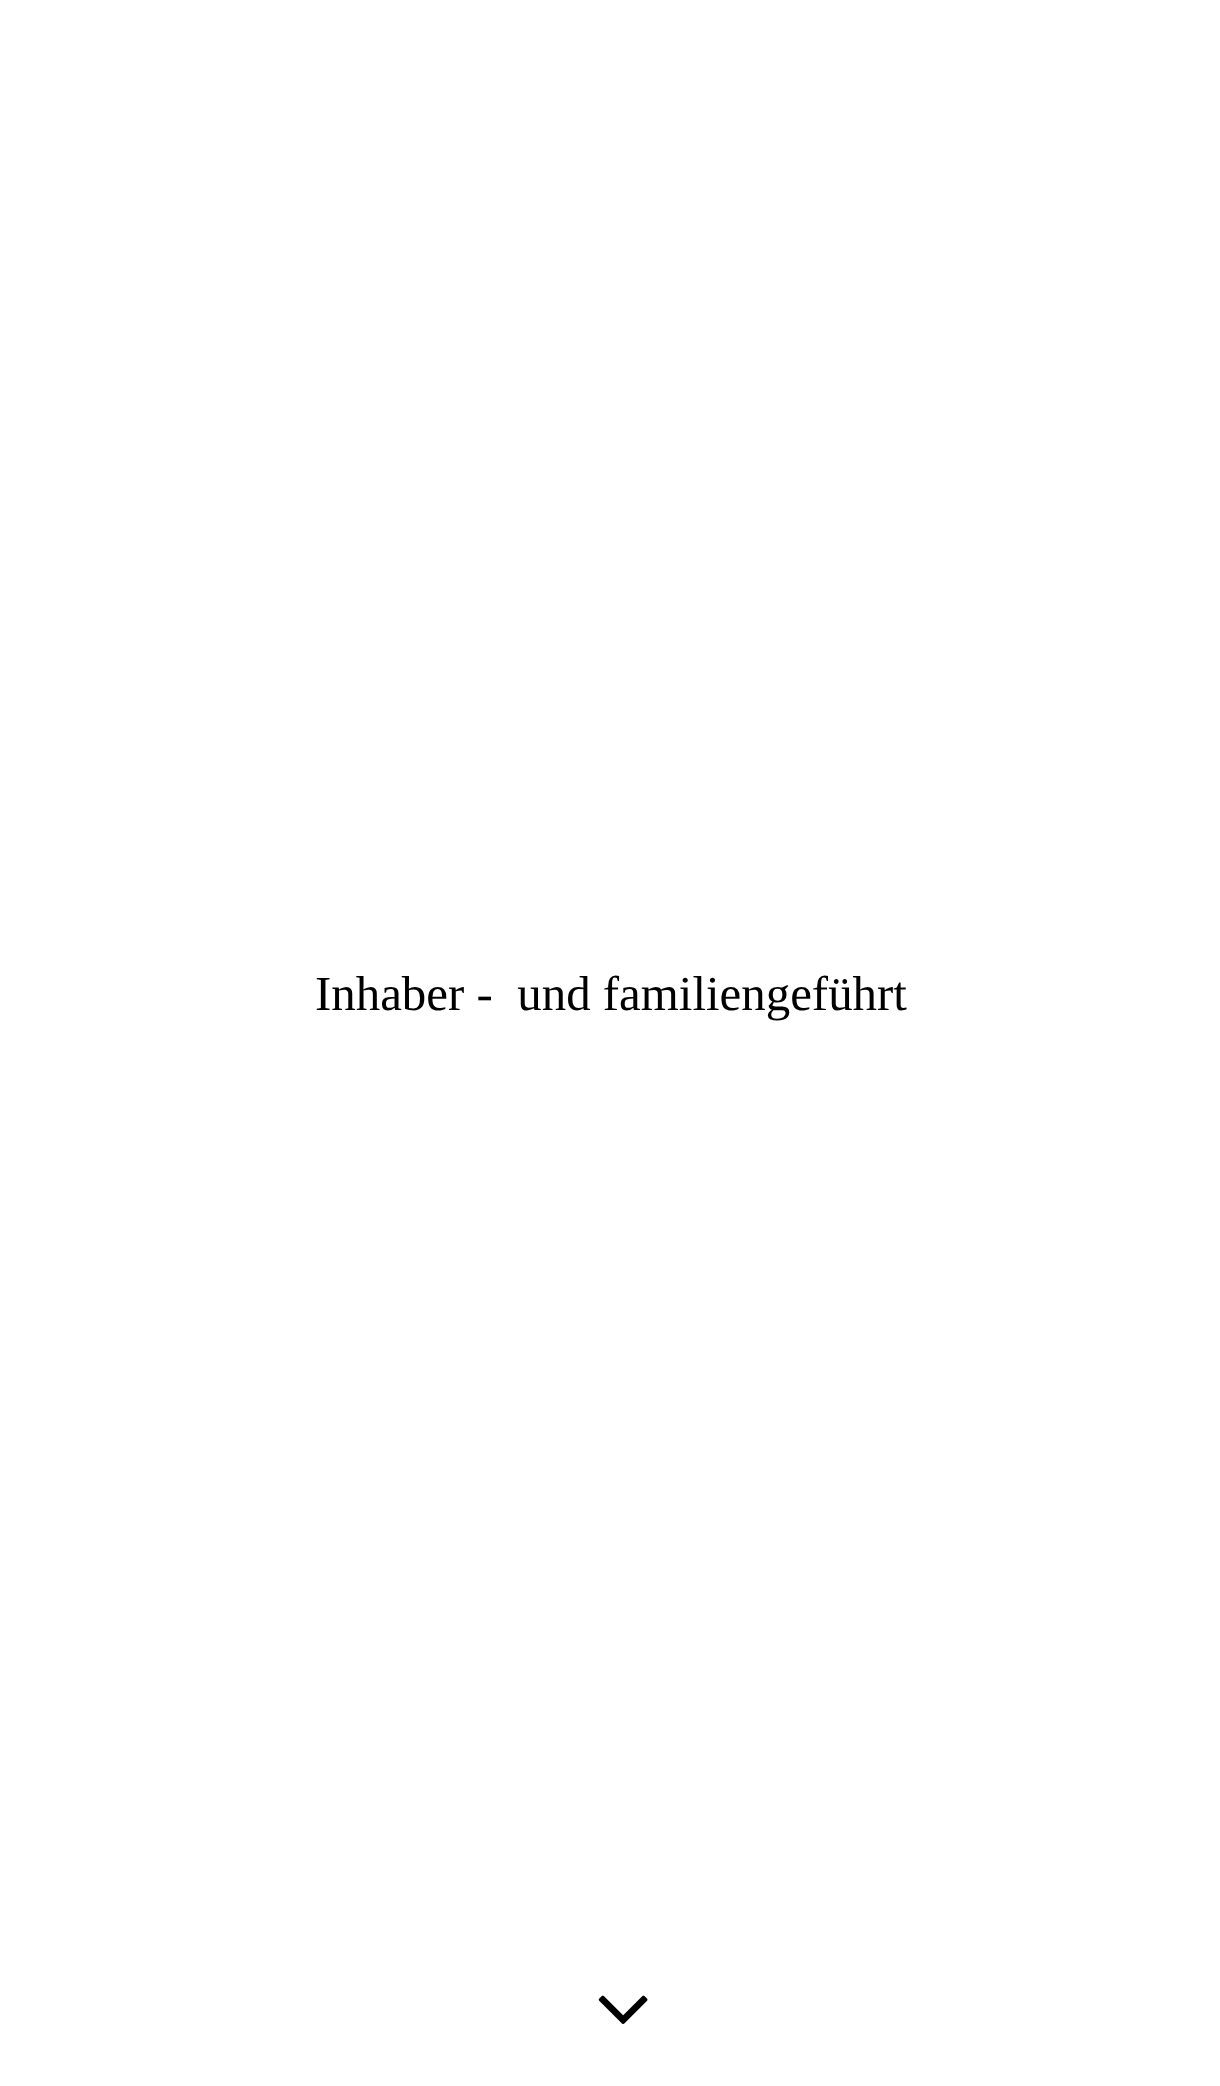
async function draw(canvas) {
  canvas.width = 1220;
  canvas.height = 2086;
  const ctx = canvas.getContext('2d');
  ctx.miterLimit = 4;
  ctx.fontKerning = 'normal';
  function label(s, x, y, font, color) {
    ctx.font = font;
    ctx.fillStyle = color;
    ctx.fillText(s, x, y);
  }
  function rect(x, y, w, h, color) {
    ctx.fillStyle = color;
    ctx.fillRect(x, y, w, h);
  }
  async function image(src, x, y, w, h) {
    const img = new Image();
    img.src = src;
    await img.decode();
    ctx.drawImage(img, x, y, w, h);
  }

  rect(0, 0, 1220, 2086, '#fff');
  label('Inhaber -  und familiengeführt', 315, 1010, '48.9px Liberation Serif', '#000');
  await image('assets/img1.png', 598, 1995, 50, 29);
}

draw(document.querySelector('canvas'));
